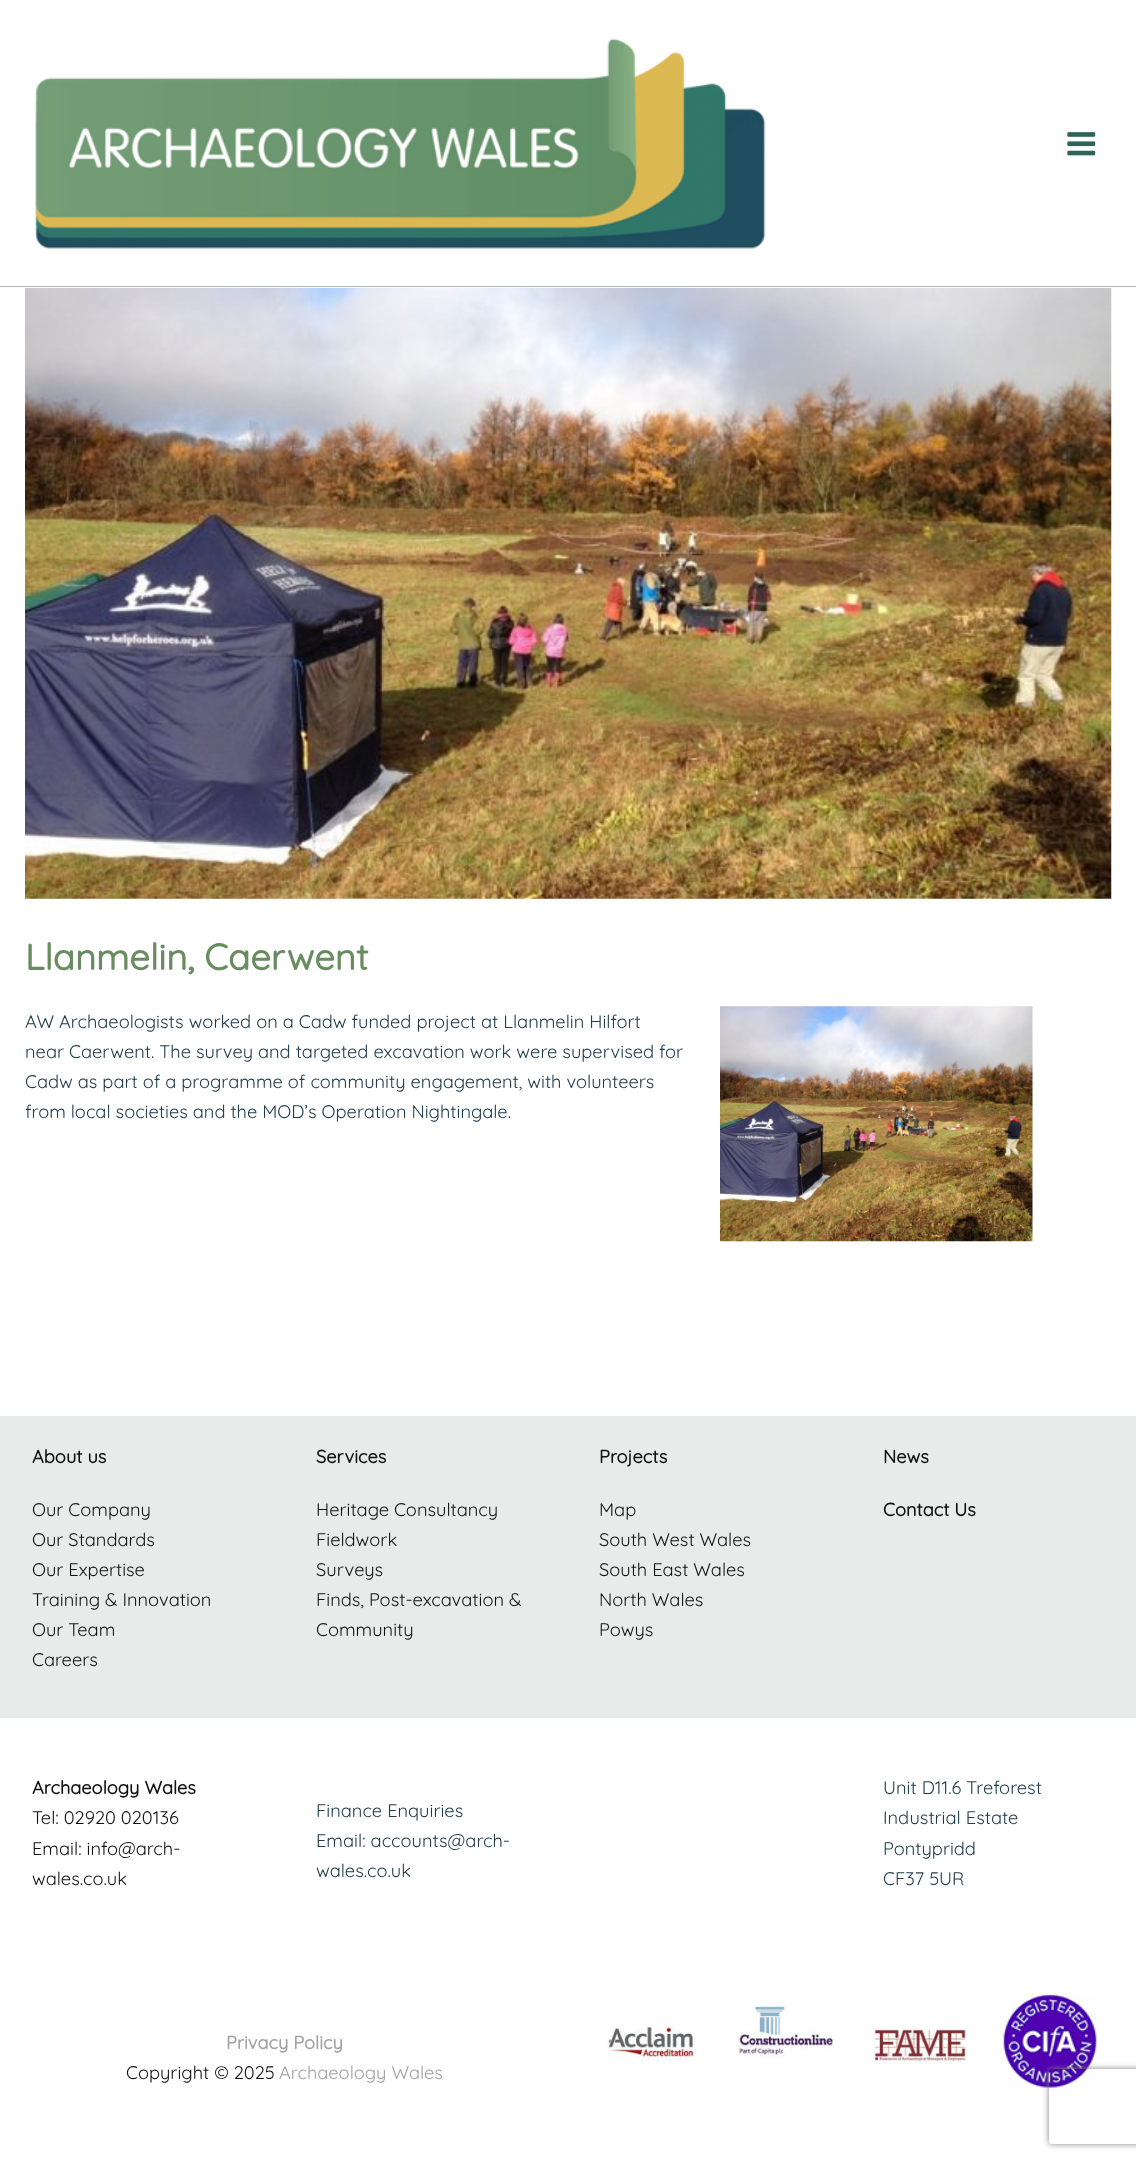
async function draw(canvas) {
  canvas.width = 1136;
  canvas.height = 2161;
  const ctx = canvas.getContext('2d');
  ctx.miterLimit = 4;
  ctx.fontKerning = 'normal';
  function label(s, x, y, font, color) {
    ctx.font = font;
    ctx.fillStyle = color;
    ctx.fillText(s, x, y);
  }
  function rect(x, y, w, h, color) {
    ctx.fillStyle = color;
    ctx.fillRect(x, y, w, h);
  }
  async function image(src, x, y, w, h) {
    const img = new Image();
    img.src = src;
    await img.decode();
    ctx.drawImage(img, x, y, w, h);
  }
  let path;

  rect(0, 0, 1136, 2161, '#fff');
  rect(0, 286, 1136, 1, '#adb6be');
  await image('assets/img1.png', 35, 38, 731, 211);
  await image('assets/img2.png', 1067, 132, 29, 24);
  await image('assets/img3.png', 25, 288, 1087, 611);
  label('Llanmelin, Caerwent', 25, 970, 'bold 36.5px Quicksand', '#688c60');
  label('AW Archaeologists worked on a Cadw funded project at Llanmelin Hilfort', 25, 1028, '300 18.25px Quicksand', '#213d4c');
  label('near Caerwent. The survey and targeted excavation work were supervised for', 25, 1058, '300 18.25px Quicksand', '#213d4c');
  label('Cadw as part of a programme of community engagement, with volunteers', 25, 1088, '300 18.25px Quicksand', '#213d4c');
  label('from local societies and the MOD’s Operation Nightingale.', 25, 1118, '300 18.25px Quicksand', '#213d4c');
  await image('assets/img4.png', 720, 1006, 313, 236);
  rect(0, 1416, 1136, 302, '#e9ebeb');
  label('About us', 32, 1463, 'bold 18.25px Quicksand', '#111');
  label('Our Company', 32, 1516, '300 18.25px Quicksand', '#111');
  label('Our Standards', 32, 1546, '300 18.25px Quicksand', '#111');
  label('Our Expertise', 32, 1576, '300 18.25px Quicksand', '#111');
  label('Training & Innovation', 32, 1606, '300 18.25px Quicksand', '#111');
  label('Our Team', 32, 1636, '300 18.25px Quicksand', '#111');
  label('Careers', 32, 1666, '300 18.25px Quicksand', '#111');
  label('Services', 316, 1463, 'bold 18.25px Quicksand', '#111');
  label('Heritage Consultancy', 316, 1516, '300 18.25px Quicksand', '#111');
  label('Fieldwork', 316, 1546, '300 18.25px Quicksand', '#111');
  label('Surveys', 316, 1576, '300 18.25px Quicksand', '#111');
  label('Finds, Post-excavation &', 316, 1606, '300 18.25px Quicksand', '#111');
  label('Community', 316, 1636, '300 18.25px Quicksand', '#111');
  label('Projects', 599, 1463, 'bold 18.25px Quicksand', '#111');
  label('Map', 599, 1516, '300 18.25px Quicksand', '#111');
  label('South West Wales', 599, 1546, '300 18.25px Quicksand', '#111');
  label('South East Wales', 599, 1576, '300 18.25px Quicksand', '#111');
  label('North Wales', 599, 1606, '300 18.25px Quicksand', '#111');
  label('Powys', 599, 1636, '300 18.25px Quicksand', '#111');
  label('News', 883, 1463, 'bold 18.25px Quicksand', '#111');
  label('Contact Us', 883, 1516, 'bold 18.25px Quicksand', '#111');
  label('Archaeology Wales', 32, 1794, 'bold 18.25px Quicksand', '#111');
  label('Tel: 02920 020136', 32, 1824, '300 18.25px Quicksand', '#111');
  label('Email: info@arch-', 32, 1855, '300 18.25px Quicksand', '#111');
  label('wales.co.uk', 32, 1885, '300 18.25px Quicksand', '#111');
  label('Finance Enquiries', 316, 1817, '300 18.25px Quicksand', '#213d4c');
  label('Email: accounts@arch-', 316, 1847, '300 18.25px Quicksand', '#213d4c');
  label('wales.co.uk', 316, 1877, '300 18.25px Quicksand', '#213d4c');
  label('Unit D11.6 Treforest', 883, 1794, '300 18.25px Quicksand', '#213d4c');
  label('Industrial Estate', 883, 1824, '300 18.25px Quicksand', '#213d4c');
  label('Pontypridd', 883, 1855, '300 18.25px Quicksand', '#213d4c');
  label('CF37 5UR', 883, 1885, '300 18.25px Quicksand', '#213d4c');
  label('Privacy Policy', 226, 2049, 'bold 18.25px Quicksand', '#a2a2a2');
  label('Copyright © 2025', 126, 2079, '300 18.25px Quicksand', '#111');
  label('Archaeology Wales', 279, 2079, '300 18.25px Quicksand', '#a2a2a2');
  await image('assets/img5.png', 607, 2024, 90, 38);
  await image('assets/img6.png', 734, 2002, 100, 56);
  await image('assets/img7.png', 874, 2028, 92, 35);
  await image('assets/img8.png', 1000, 1994, 97, 94);
  ctx.save();
  path = new Path2D('M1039 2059H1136V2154H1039ZM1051.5 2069H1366.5C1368 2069 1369 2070 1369 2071.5V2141.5C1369 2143 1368 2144 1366.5 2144H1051.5C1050 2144 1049 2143 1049 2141.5V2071.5C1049 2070 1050 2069 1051.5 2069Z');
  ctx.clip(path, 'evenodd');
  ctx.fillStyle = '#808080';
  ctx.filter = 'blur(3px)';
  ctx.beginPath();
  ctx.roundRect(1049, 2069, 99, 75, 2.5);
  ctx.fill();
  ctx.filter = 'none';
  ctx.restore();
}

draw(document.querySelector('canvas'));
